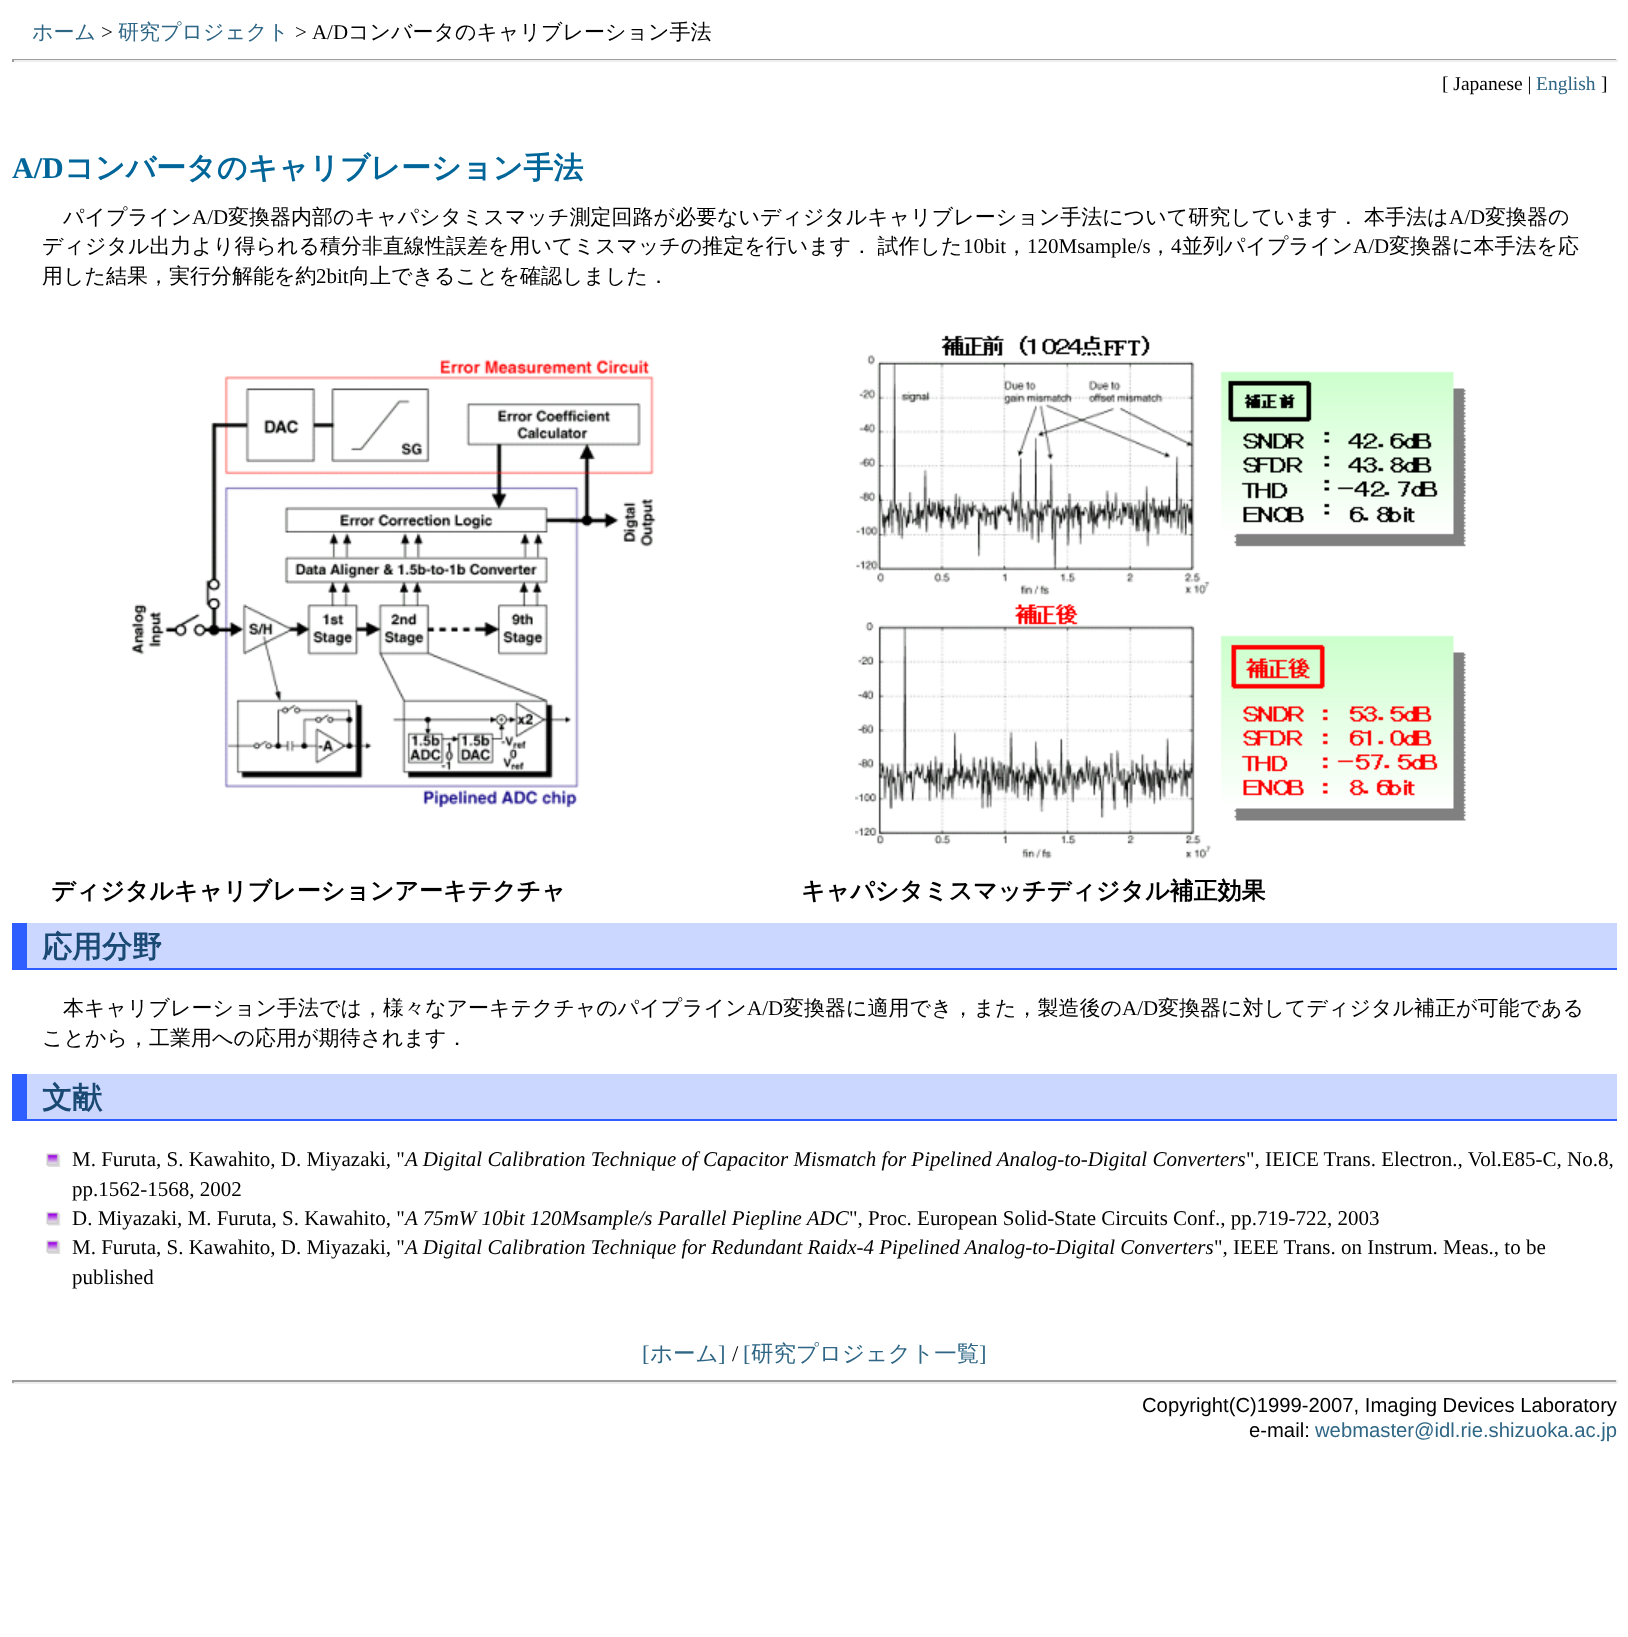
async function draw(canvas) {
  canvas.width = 1628;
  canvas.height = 1637;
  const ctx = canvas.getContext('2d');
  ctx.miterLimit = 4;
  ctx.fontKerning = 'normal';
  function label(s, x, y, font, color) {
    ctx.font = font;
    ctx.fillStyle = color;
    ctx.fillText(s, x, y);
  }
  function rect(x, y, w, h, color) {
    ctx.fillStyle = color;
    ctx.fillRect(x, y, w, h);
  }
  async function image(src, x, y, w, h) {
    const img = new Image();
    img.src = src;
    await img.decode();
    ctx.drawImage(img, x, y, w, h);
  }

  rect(0, 0, 1628, 1637, '#fff');
  label('ホーム', 32, 39, '500 21px WenQuanYi Zen Hei', '#2f6685');
  label('>', 101, 39, '21px Liberation Serif', '#000');
  label('研究プロジェクト', 118, 39, '500 21px WenQuanYi Zen Hei', '#2f6685');
  ctx.wordSpacing = '1px';
  label('> A/D', 295, 39, '21px Liberation Serif', '#000');
  ctx.wordSpacing = '0px';
  label('コンバータのキャリブレーション手法', 348, 39, '500 21px WenQuanYi Zen Hei', '#000');
  rect(12, 59, 1605, 1, '#9f9f9f');
  rect(1616, 59, 2, 3, '#eee');
  rect(12, 60, 1605, 2, '#eee');
  rect(12, 59, 2, 3, '#9f9f9f');
  label('[ Japanese |', 1442, 90, '19.5px Liberation Serif', '#000');
  label('English', 1536, 90, '19.5px Liberation Serif', '#2f6685');
  label(']', 1601, 90, '19.5px Liberation Serif', '#000');
  label('A/D', 12, 178, 'bold 30px Liberation Serif', '#069');
  label('コンバータのキャリブレーション手法', 64, 178, 'bold 30px WenQuanYi Zen Hei', '#069');
  label('パイプライン', 63, 224, '500 21px WenQuanYi Zen Hei', '#000');
  label('A/D', 192, 224, '21px Liberation Serif', '#000');
  ctx.wordSpacing = '-1px';
  label('変換器内部のキャパシタミスマッチ測定回路が必要ないディジタルキャリブレーション手法について研究しています． 本手法は', 228, 224, '500 21px WenQuanYi Zen Hei', '#000');
  ctx.wordSpacing = '0px';
  label('A/D', 1449, 224, '21px Liberation Serif', '#000');
  label('変換器の', 1485, 224, '500 21px WenQuanYi Zen Hei', '#000');
  ctx.wordSpacing = '-1px';
  label('ディジタル出力より得られる積分非直線性誤差を用いてミスマッチの推定を行います． 試作した', 42, 253, '500 21px WenQuanYi Zen Hei', '#000');
  ctx.wordSpacing = '0px';
  label('10bit', 963, 253, '21px Liberation Serif', '#000');
  label('，', 1006, 253, '500 21px WenQuanYi Zen Hei', '#000');
  label('120Msample/s', 1027, 253, '21px Liberation Serif', '#000');
  label('，', 1150, 253, '500 21px WenQuanYi Zen Hei', '#000');
  label('4', 1171, 253, '21px Liberation Serif', '#000');
  label('並列パイプライン', 1182, 253, '500 21px WenQuanYi Zen Hei', '#000');
  label('A/D', 1353, 253, '21px Liberation Serif', '#000');
  label('変換器に本手法を応', 1389, 253, '500 21px WenQuanYi Zen Hei', '#000');
  label('用した結果，実行分解能を約', 42, 283, '500 21px WenQuanYi Zen Hei', '#000');
  label('2bit', 316, 283, '21px Liberation Serif', '#000');
  label('向上できることを確認しました．', 349, 283, '500 21px WenQuanYi Zen Hei', '#000');
  await image('assets/img1.png', 131, 359, 525, 449);
  await image('assets/img2.png', 855, 335, 611, 524);
  label('ディジタルキャリブレーションアーキテクチャ', 51, 899, 'bold 24px WenQuanYi Zen Hei', '#000');
  label('キャパシタミスマッチディジタル補正効果', 801, 899, 'bold 24px WenQuanYi Zen Hei', '#000');
  rect(27, 923, 1590, 45, '#ccd7ff');
  rect(12, 968, 1605, 2, '#2e5eff');
  rect(12, 923, 15, 45, '#2e5eff');
  label('応用分野', 42, 957, 'bold 30px WenQuanYi Zen Hei', '#1a4a74');
  label('本キャリブレーション手法では，様々なアーキテクチャのパイプライン', 63, 1015, '500 21px WenQuanYi Zen Hei', '#000');
  label('A/D', 747, 1015, '21px Liberation Serif', '#000');
  label('変換器に適用でき，また，製造後の', 783, 1015, '500 21px WenQuanYi Zen Hei', '#000');
  label('A/D', 1122, 1015, '21px Liberation Serif', '#000');
  label('変換器に対してディジタル補正が可能である', 1158, 1015, '500 21px WenQuanYi Zen Hei', '#000');
  label('ことから，工業用への応用が期待されます．', 42, 1045, '500 21px WenQuanYi Zen Hei', '#000');
  rect(27, 1074, 1590, 45, '#ccd7ff');
  rect(27, 1119, 1590, 2, '#2e5eff');
  rect(12, 1074, 15, 47, '#2e5eff');
  label('文献', 42, 1108, 'bold 30px WenQuanYi Zen Hei', '#1a4a74');
  await image('assets/img3.png', 46, 1153, 15, 14);
  label('M. Furuta, S. Kawahito, D. Miyazaki, "', 72, 1166, '21px Liberation Serif', '#000');
  label('A Digital Calibration Technique of Capacitor Mismatch for Pipelined Analog-to-Digital Converters', 405, 1166, 'italic 21px Liberation Serif', '#000');
  label('", IEICE Trans. Electron., Vol.E85-C, No.8,', 1246, 1166, '21px Liberation Serif', '#000');
  label('pp.1562-1568, 2002', 72, 1196, '21px Liberation Serif', '#000');
  await image('assets/img4.png', 46, 1211, 15, 15);
  label('D. Miyazaki, M. Furuta, S. Kawahito, "', 72, 1225, '21px Liberation Serif', '#000');
  label('A 75mW 10bit 120Msample/s Parallel Piepline ADC', 405, 1225, 'italic 21px Liberation Serif', '#000');
  label('", Proc. European Solid-State Circuits Conf., pp.719-722, 2003', 849, 1225, '21px Liberation Serif', '#000');
  await image('assets/img3.png', 46, 1240, 15, 14);
  label('M. Furuta, S. Kawahito, D. Miyazaki, "', 72, 1254, '21px Liberation Serif', '#000');
  label('A Digital Calibration Technique for Redundant Raidx-4 Pipelined Analog-to-Digital Converters', 405, 1254, 'italic 21px Liberation Serif', '#000');
  label('", IEEE Trans. on Instrum. Meas., to be', 1214, 1254, '21px Liberation Serif', '#000');
  label('published', 72, 1284, '21px Liberation Serif', '#000');
  label('[', 642, 1361, '22.5px Liberation Serif', '#2f6685');
  label('ホーム', 650, 1361, '500 22.5px WenQuanYi Zen Hei', '#2f6685');
  label(']', 718, 1361, '22.5px Liberation Serif', '#2f6685');
  label('/', 732, 1361, '22.5px Liberation Serif', '#000');
  label('[', 743, 1361, '22.5px Liberation Serif', '#2f6685');
  label('研究プロジェクト一覧', 751, 1361, '500 22.5px WenQuanYi Zen Hei', '#2f6685');
  label(']', 979, 1361, '22.5px Liberation Serif', '#2f6685');
  rect(12, 1380, 1605, 2, '#9f9f9f');
  rect(1616, 1380, 2, 3, '#eee');
  rect(12, 1382, 1605, 2, '#eee');
  rect(12, 1380, 2, 3, '#9f9f9f');
  label('Copyright(C)1999-2007, Imaging Devices Laboratory', 1142, 1412, '20.25px Liberation Sans', '#000');
  label('e-mail:', 1249, 1437, '20.25px Liberation Sans', '#000');
  label('webmaster@idl.rie.shizuoka.ac.jp', 1315, 1437, '20.25px Liberation Sans', '#2f6685');
}

draw(document.querySelector('canvas'));
